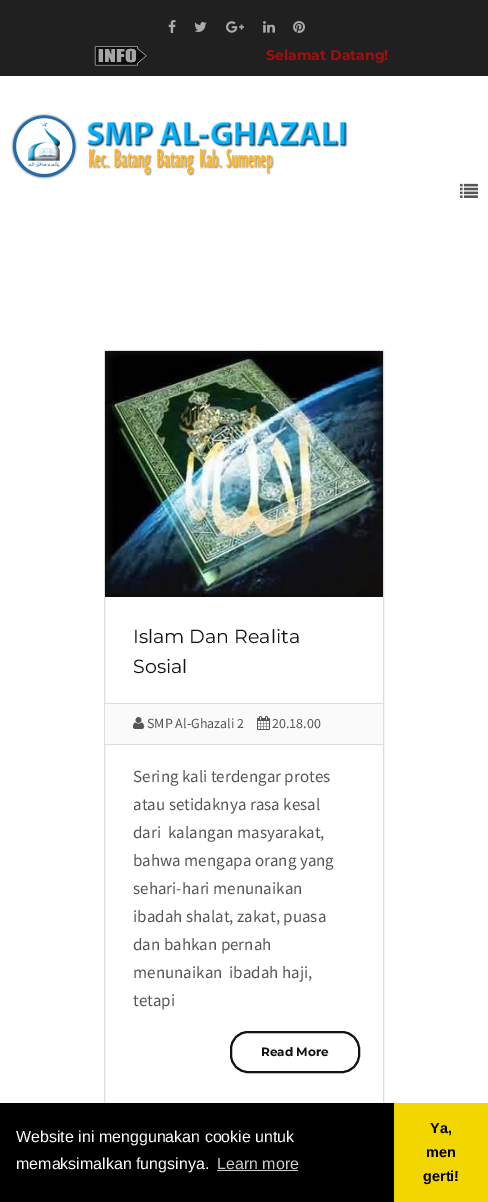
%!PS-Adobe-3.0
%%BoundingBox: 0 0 488 1202
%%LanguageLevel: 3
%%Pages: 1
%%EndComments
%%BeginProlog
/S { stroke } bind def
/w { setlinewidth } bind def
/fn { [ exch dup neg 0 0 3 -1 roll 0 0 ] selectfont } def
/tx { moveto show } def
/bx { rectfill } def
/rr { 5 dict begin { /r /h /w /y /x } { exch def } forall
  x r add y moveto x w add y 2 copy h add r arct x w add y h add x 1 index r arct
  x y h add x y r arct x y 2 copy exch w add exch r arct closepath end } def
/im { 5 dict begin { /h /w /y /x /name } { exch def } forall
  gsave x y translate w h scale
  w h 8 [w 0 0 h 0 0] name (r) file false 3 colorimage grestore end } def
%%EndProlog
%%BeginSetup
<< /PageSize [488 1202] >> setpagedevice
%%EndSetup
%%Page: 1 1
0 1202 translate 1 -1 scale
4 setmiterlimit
1 setgray
0 0 488 1202 bx
0.125 setgray
0 0 488 76 bx
(image0.raw) 168 20 8 13 im
(image1.raw) 194 22 13 10 im
(image2.raw) 226 21 18 12 im
(image3.raw) 263 21 12 12 im
(image4.raw) 293 21 12 12 im
(image5.raw) 94 46 53 20 im
/Montserrat-Bold 14 fn
0.651 0.051 0.051 setrgbcolor
(Selamat Datang!) 266 60 tx
0.067 0.235 0.494 setrgbcolor
389 61 1 1 bx
(image6.raw) 11 113 337 66 im
(image7.raw) 460 183 18 15 im
0.867 setgray
104.5 350.5 279 758 rectstroke
(image8.raw) 105 351 278 246 im
/Montserrat-Regular 19 fn
0.067 setgray
(Islam Dan Realita) 133 643 tx
(Sosial) 133 673 tx
0.98 setgray
105 704 278 40 bx
0.867 setgray
105 703 278 1 bx
105 744 278 1 bx
(image9.raw) 133 717 11 12 im
/SourceSansPro-Regular 14 fn
0.333 setgray
(SMP Al-Ghazali 2) 147 728 tx
(image10.raw) 257 716 13 14 im
(20.18.00) 272 728 tx
/SourceSansPro-Regular 17 fn
(Sering kali terdengar protes) 133 782 tx
(atau setidaknya rasa kesal) 133 810 tx
(dari  kalangan masyarakat,) 133 838 tx
(bahwa mengapa orang yang) 133 866 tx
(sehari-hari menunaikan) 133 894 tx
(ibadah shalat, zakat, puasa) 133 922 tx
(dan bahkan pernah) 133 950 tx
(menunaikan  ibadah haji,) 133 978 tx
(tetapi) 133 1006 tx
0.067 setgray
2 w
231 1032 128 40 17 rr S
/Montserrat-Bold 12 fn
(Read More) 261 1056 tx
0 setgray
0 1103 394 99 bx
/LiberationSans-Regular 16 fn
1 setgray
(Website ini menggunakan cookie untuk) 16 1142 tx
(memaksimalkan fungsinya.) 16 1169 tx
0.8 setgray
(Learn more) 217 1169 tx
217 1170 81 1 bx
0.945 0.839 0 setrgbcolor
394 1103 94 99 bx
/LiberationSans-Bold 14.5 fn
0 setgray
(Ya,) 430 1133 tx
(men) 426 1157 tx
(gerti!) 423 1181 tx
showpage
%%EOF
